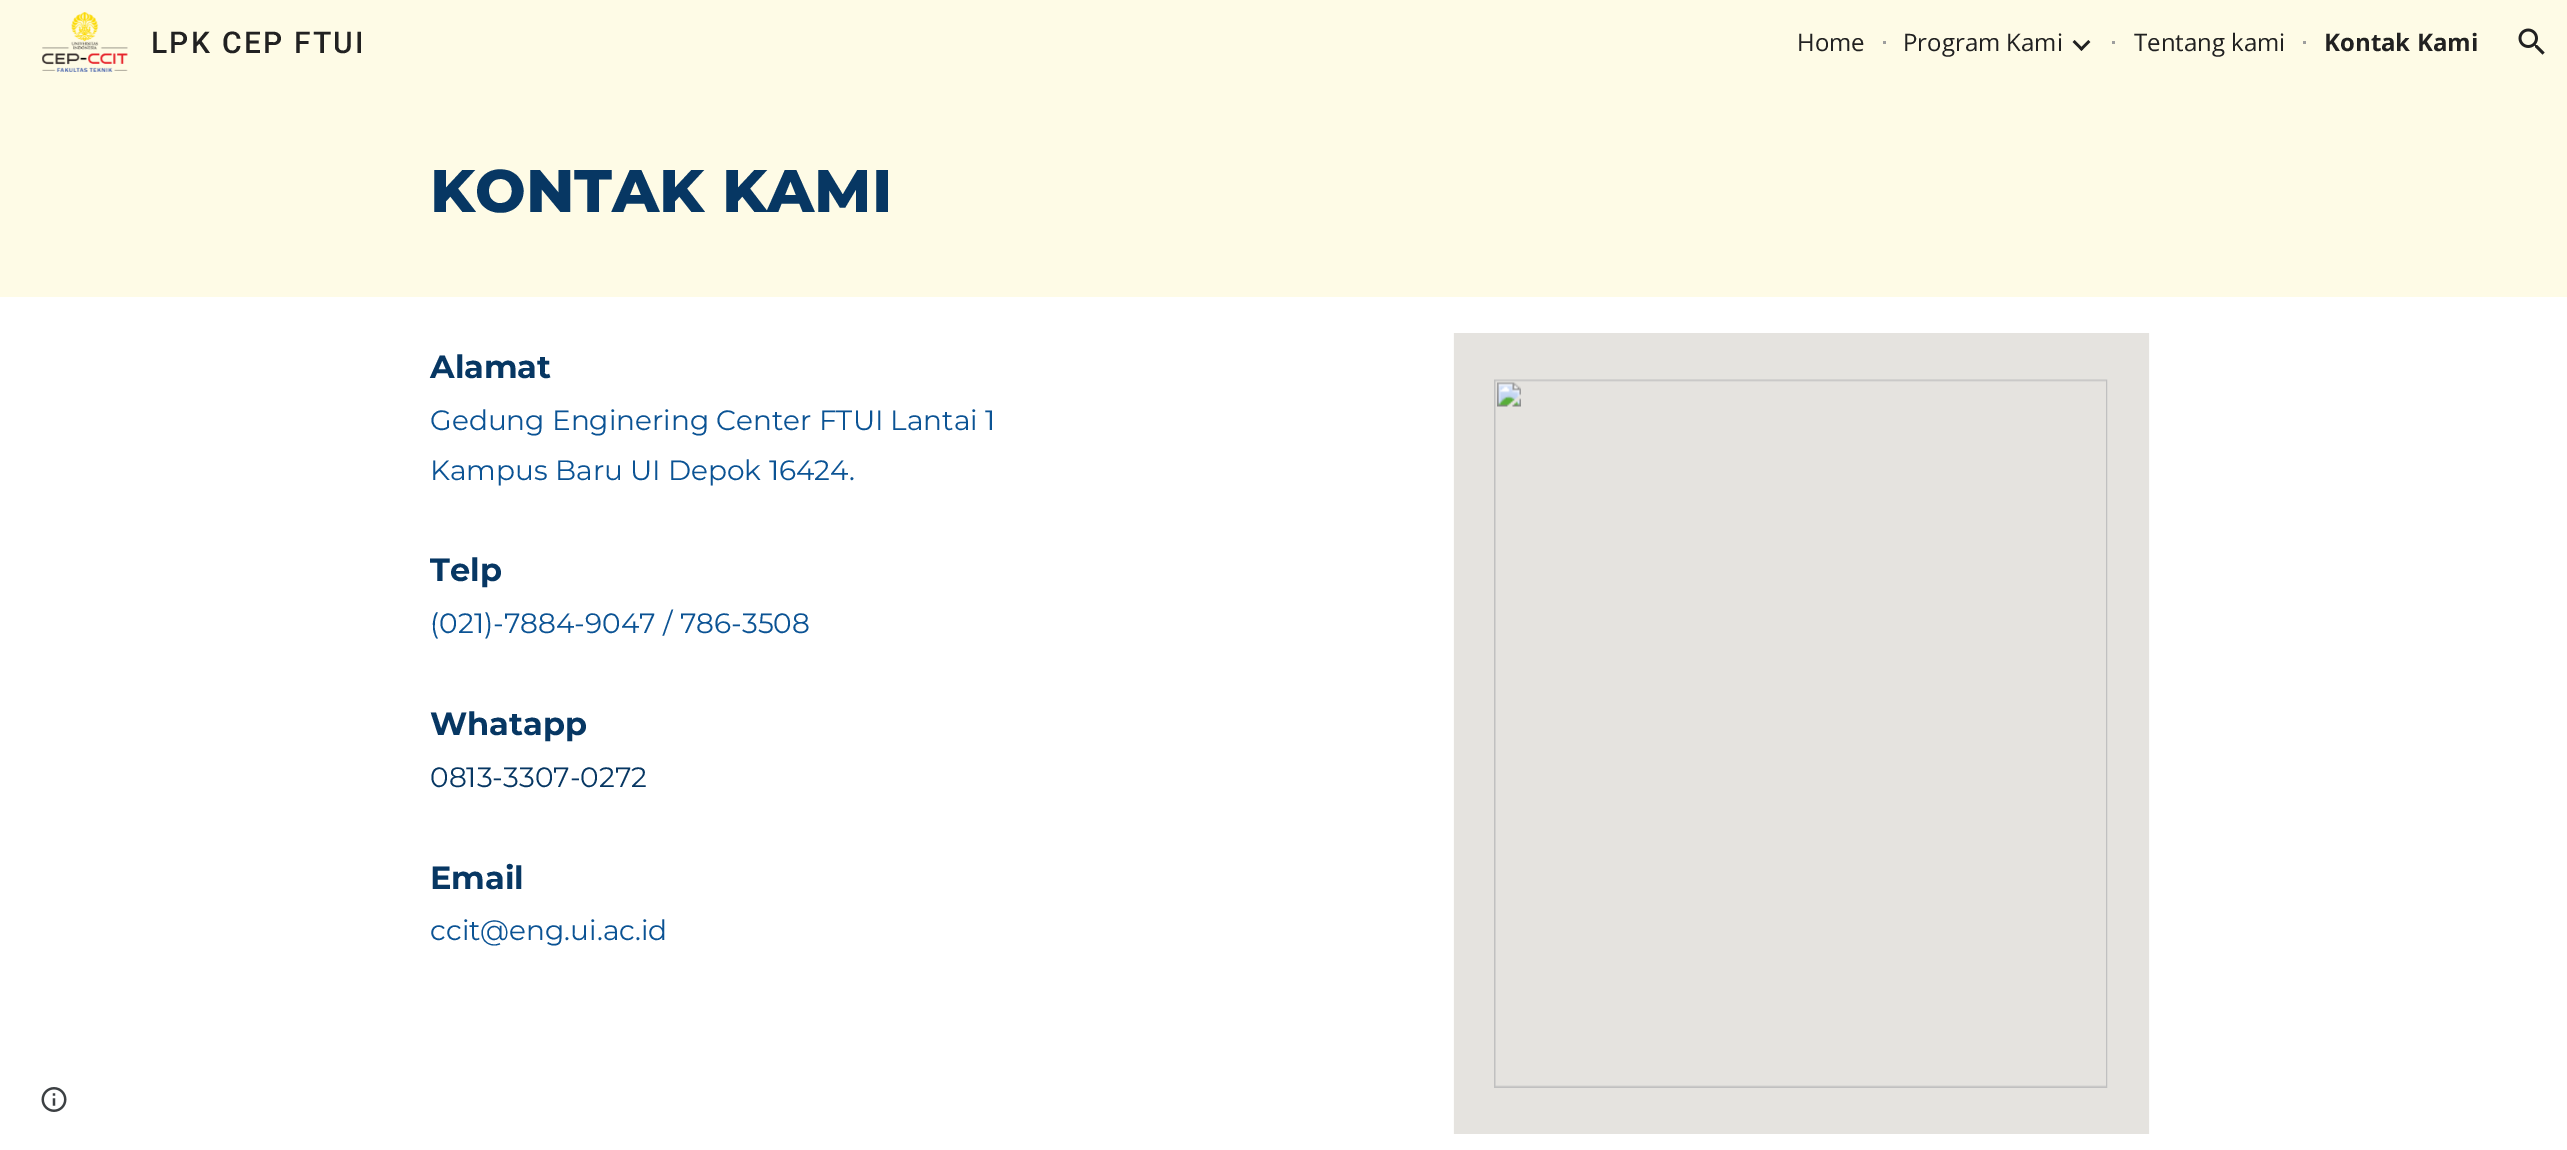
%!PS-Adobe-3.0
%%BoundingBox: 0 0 2567 1150
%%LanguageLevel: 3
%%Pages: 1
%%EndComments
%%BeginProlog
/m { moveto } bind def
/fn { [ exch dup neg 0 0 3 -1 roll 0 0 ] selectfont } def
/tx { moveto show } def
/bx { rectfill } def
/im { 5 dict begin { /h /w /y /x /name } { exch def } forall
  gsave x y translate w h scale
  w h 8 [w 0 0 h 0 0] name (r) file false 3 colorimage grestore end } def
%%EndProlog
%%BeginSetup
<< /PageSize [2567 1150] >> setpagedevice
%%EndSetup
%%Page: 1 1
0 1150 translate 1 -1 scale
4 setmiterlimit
1 setgray
0 0 2567 1150 bx
0.996 0.984 0.902 setrgbcolor
0 0 2567 297 bx
(image0.raw) 42 12 86 60 im
/Roboto-Medium 30 fn
0.129 setgray
151 53 m 2.25 0 (LPK CEP FTUI) ashow
/OpenSans-Regular 24 fn
(Home) 1797 51 tx
0.62 setgray
1883 41 3 3 bx
0.129 setgray
(Program Kami) 1903 51 tx
(image1.raw) 2072 40 19 11 im
0.62 setgray
2112 41 3 3 bx
0.129 setgray
(Tentang kami) 2134 51 tx
0.62 setgray
2303 41 3 3 bx
/OpenSans-Bold 24 fn
0.129 setgray
(Kontak Kami) 2324 51 tx
(image2.raw) 2518 28 27 27 im
/Montserrat-ExtraBold 60 fn
0.027 0.216 0.388 setrgbcolor
(KONTAK KAMI) 430 212 tx
/Montserrat-Bold 32 fn
(Alamat) 430 378 tx
/Montserrat-Regular 28 fn
0.043 0.325 0.58 setrgbcolor
(Gedung Enginering Center FTUI Lantai 1) 430 430 tx
(Kampus Baru UI Depok 16424.) 430 480 tx
/Montserrat-Bold 32 fn
0.027 0.216 0.388 setrgbcolor
(Telp) 430 581 tx
/Montserrat-Regular 28 fn
0.043 0.325 0.58 setrgbcolor
(\(021\)-7884-9047 / 786-3508) 430 633 tx
/Montserrat-Bold 32 fn
0.027 0.216 0.388 setrgbcolor
(Whatapp) 430 735 tx
/Montserrat-Regular 28 fn
(0813-3307-0272) 430 787 tx
/Montserrat-Bold 32 fn
(Email) 430 889 tx
/Montserrat-Regular 28 fn
0.043 0.325 0.58 setrgbcolor
(ccit@eng.ui.ac.id) 430 940 tx
(image3.raw) 1453 333 697 801 im
(image4.raw) 41 1087 26 25 im
showpage
%%EOF
